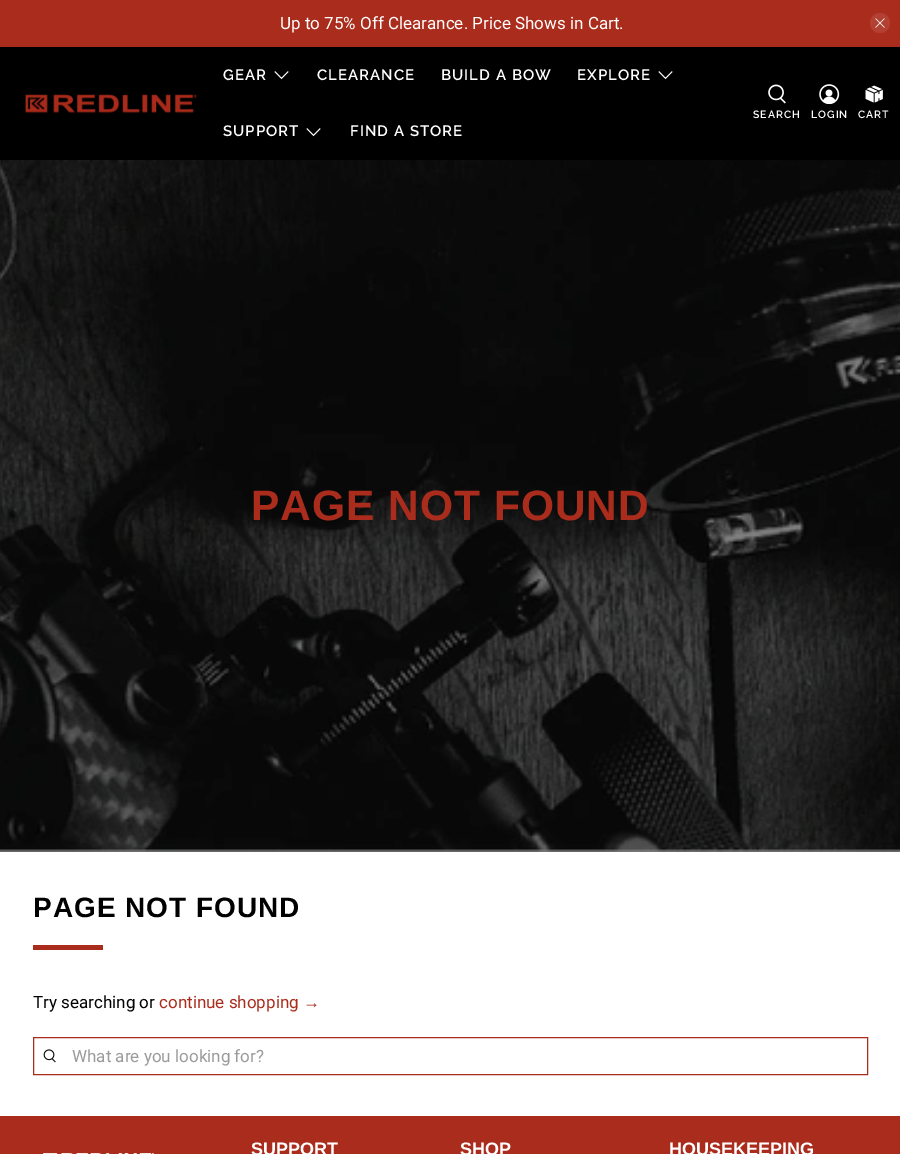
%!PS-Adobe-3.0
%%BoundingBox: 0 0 900 1154
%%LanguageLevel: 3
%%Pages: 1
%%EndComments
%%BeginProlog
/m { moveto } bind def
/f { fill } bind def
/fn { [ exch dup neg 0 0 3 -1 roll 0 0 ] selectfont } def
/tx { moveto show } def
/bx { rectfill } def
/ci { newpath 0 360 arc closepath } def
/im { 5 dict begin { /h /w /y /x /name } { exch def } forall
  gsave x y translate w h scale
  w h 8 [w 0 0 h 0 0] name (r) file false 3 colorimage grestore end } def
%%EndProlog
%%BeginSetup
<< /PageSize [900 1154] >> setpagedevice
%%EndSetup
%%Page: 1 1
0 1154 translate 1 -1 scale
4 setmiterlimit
1 setgray
0 0 900 1154 bx
0.502 setgray
0 844 900 8 bx
0.667 0.173 0.11 setrgbcolor
0 0 900 47 bx
/Roboto-Regular 17 fn
1 setgray
(Up to 75% Off Clearance. Price Shows in Cart.) 280 29 tx
0.702 0.255 0.2 setrgbcolor
880 23 10 ci f
(image0.raw) 875 18 10 10 im
0 setgray
0 47 900 113 bx
(image1.raw) 25 94 172 20 im
/Raleway-SemiBold 15 fn
1 setgray
223 80 m 1 0 (GEAR) ashow
(image2.raw) 274 71 15 9 im
317 80 m 1 0 (CLEARANCE) ashow
441 80 m 1 0 (BUILD A BOW) ashow
577 80 m 1 0 (EXPLORE) ashow
(image2.raw) 658 71 15 9 im
223 136 m 1 0 (SUPPORT) ashow
(image2.raw) 306 128 15 9 im
350 136 m 1 0 (FIND A STORE) ashow
(image3.raw) 768 84 18 20 im
/Raleway-SemiBold 10.5 fn
753 118 m 1 0 (SEARCH) ashow
(image4.raw) 819 84 21 20 im
811 118 m 1 0 (LOGIN) ashow
(image5.raw) 865 85 18 18 im
858 118 m 1 0 (CART) ashow
(image6.raw) 0 160 900 692 im
/Arimo-Bold 42.5 fn
0.667 0.173 0.11 setrgbcolor
251 520 m 1 0 (PAGE NOT FOUND) ashow
/Arimo-Bold 28 fn
0 setgray
33 917 m 1 0 (PAGE NOT FOUND) ashow
0.667 0.173 0.11 setrgbcolor
33 945 70 5 bx
/Roboto-Regular 17 fn
0 setgray
(Try searching or) 33 1008 tx
0.667 0.173 0.11 setrgbcolor
(continue shopping) 159 1008 tx
/LiberationSans-Regular 17 fn
(→) 303 1008 tx
33.5 1037.5 834 37 rectstroke
(image7.raw) 43 1049 13 14 im
/Roboto-Regular 17 fn
0.608 setgray
(What are you looking for?) 72 1062 tx
0.667 0.173 0.11 setrgbcolor
0 1116 900 38 bx
(image8.raw) 43 1153 111 1 im
/Arimo-Bold 18 fn
1 setgray
(SUPPORT) 251 1155 tx
(SHOP) 460 1155 tx
(HOUSEKEEPING) 669 1155 tx
showpage
%%EOF
